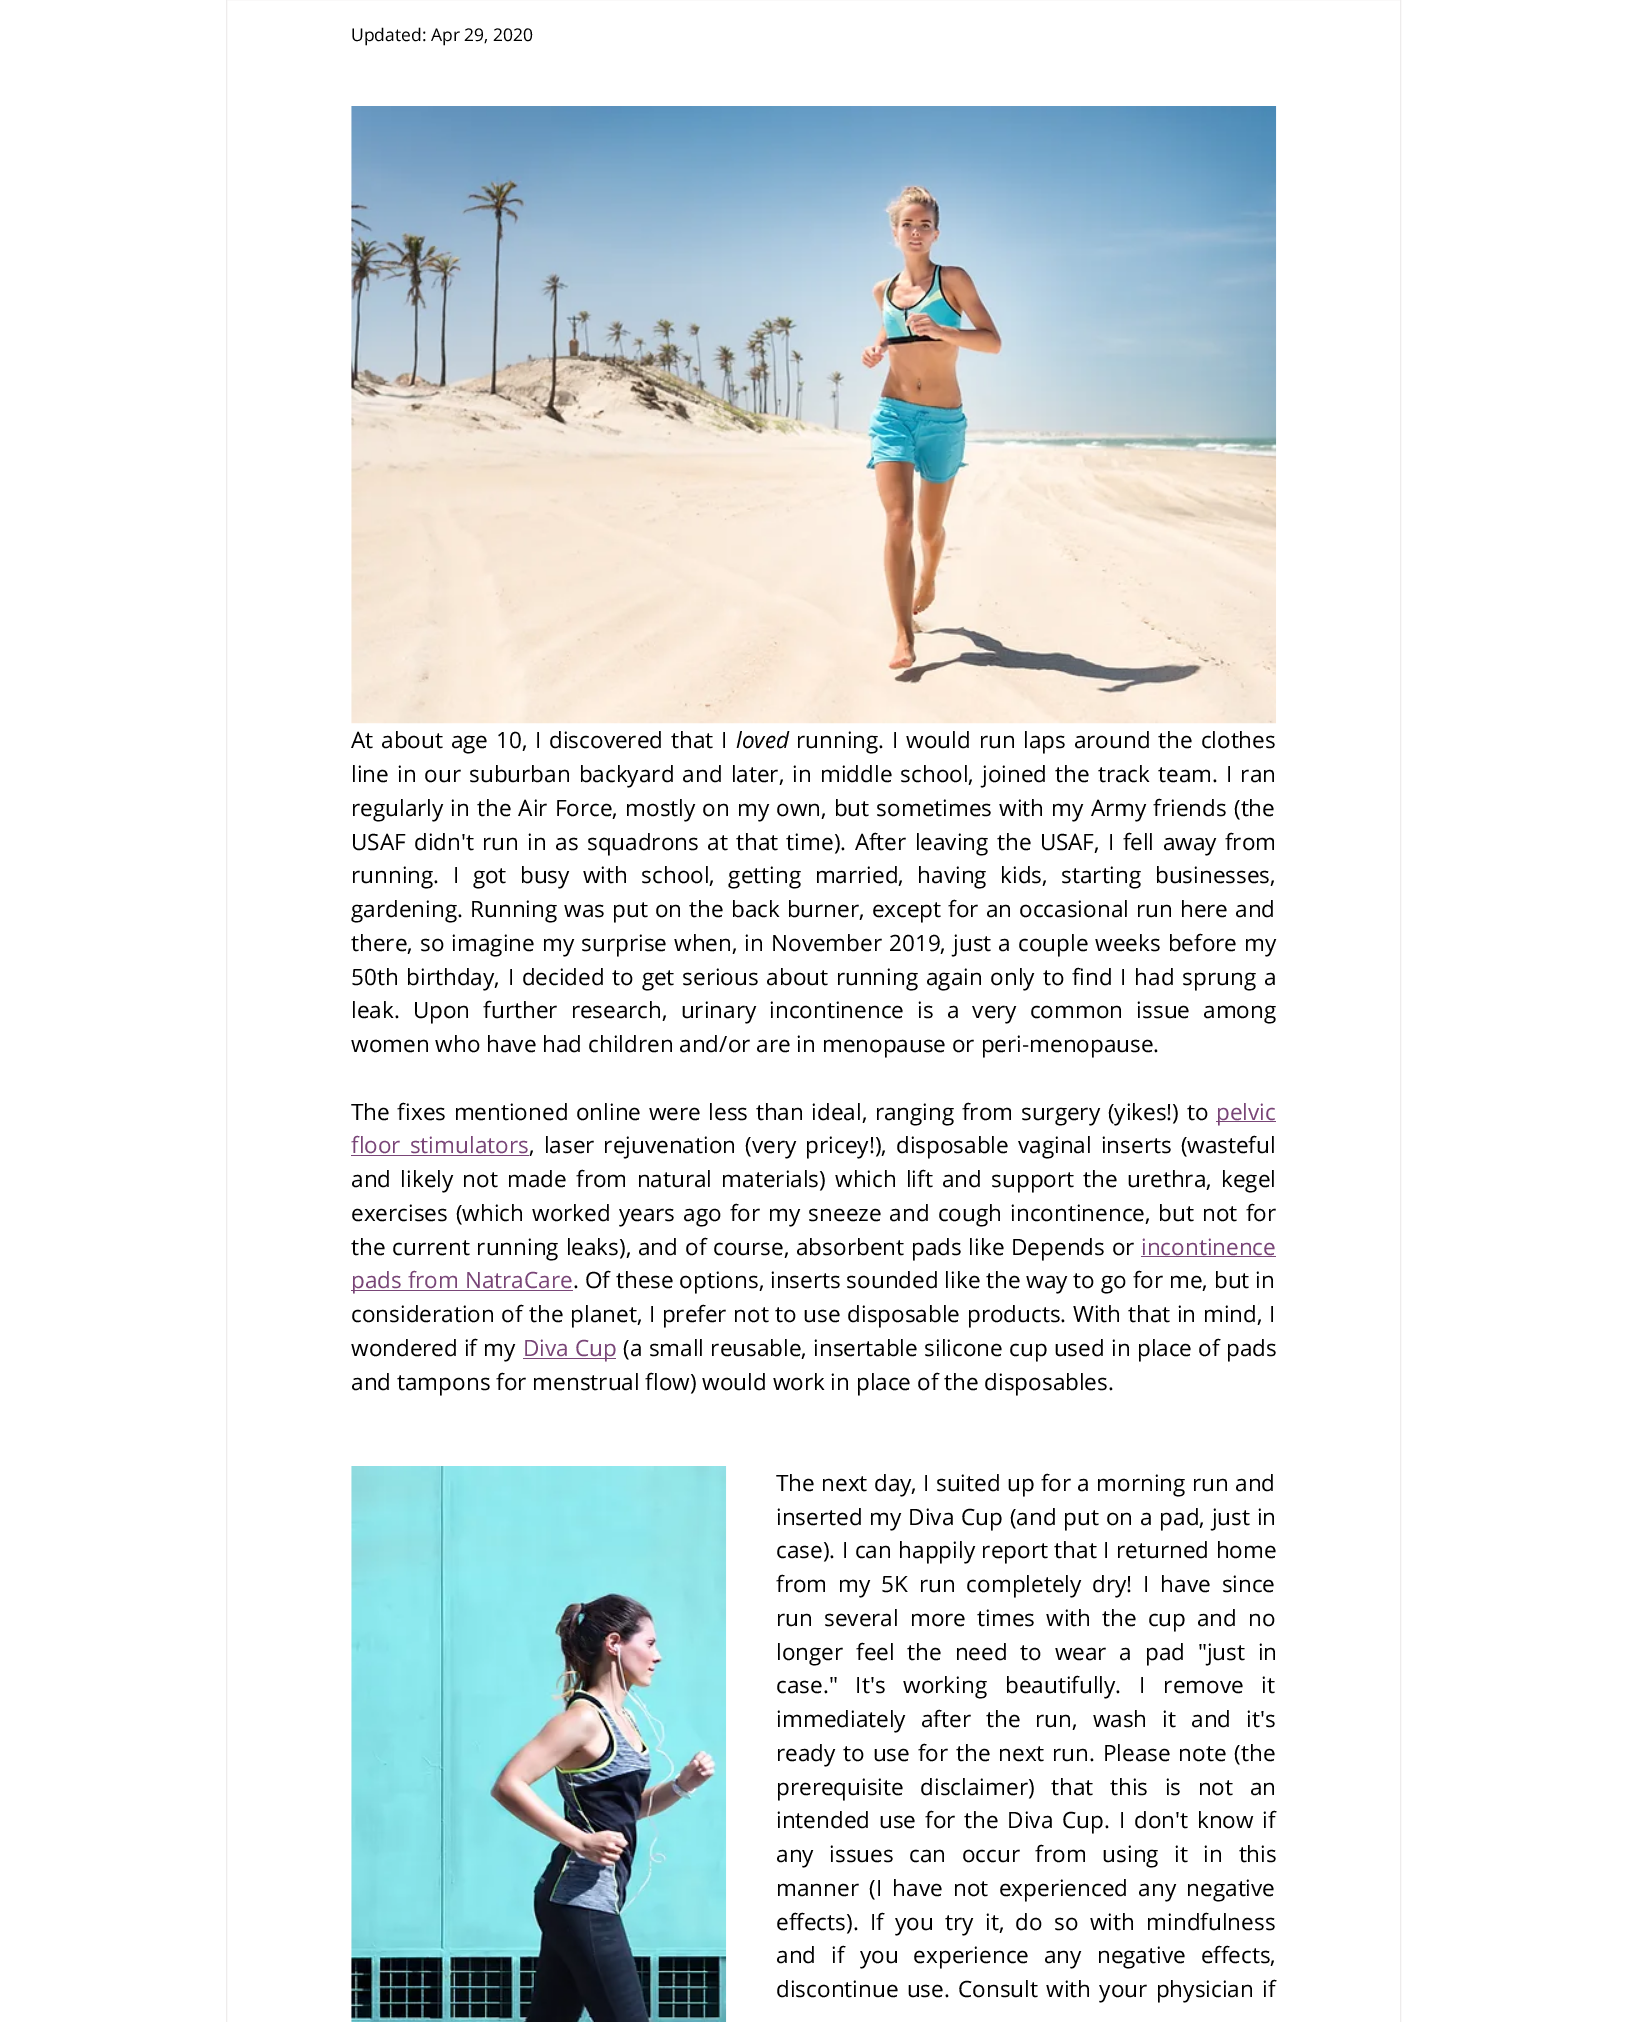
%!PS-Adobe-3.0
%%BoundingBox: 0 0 1627 2022
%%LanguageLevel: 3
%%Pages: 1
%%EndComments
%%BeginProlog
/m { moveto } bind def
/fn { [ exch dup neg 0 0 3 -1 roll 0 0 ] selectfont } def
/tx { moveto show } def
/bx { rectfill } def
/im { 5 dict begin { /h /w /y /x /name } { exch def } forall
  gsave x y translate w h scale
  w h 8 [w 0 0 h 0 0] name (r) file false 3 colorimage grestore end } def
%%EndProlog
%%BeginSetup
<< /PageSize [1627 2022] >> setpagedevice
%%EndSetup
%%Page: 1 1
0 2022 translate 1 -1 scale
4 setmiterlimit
1 setgray
0 0 1627 2022 bx
0.933 0.925 0.925 setrgbcolor
226.5 -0.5 1174 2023 rectstroke
/OpenSans-Regular 17.5 fn
0 setgray
(Updated: Apr 29, 2020) 351 41 tx
(image0.raw) 351 106 926 618 im
/OpenSans-Regular 22.5 fn
351 748 m 2 0 32 (At about age 10, I discovered that I) widthshow
/OpenSans-Italic 22.5 fn
(loved) 736 748 tx
/OpenSans-Regular 22.5 fn
796 748 m 2 0 32 (running. I would run laps around the clothes) widthshow
351 782 m 2.25 0 32 (line in our suburban backyard and later, in middle school, joined the track team. I ran) widthshow
351 816 m 1.25 0 32 (regularly in the Air Force, mostly on my own, but sometimes with my Army friends \(the) widthshow
351 850 m 2.5 0 32 (USAF didn't run in as squadrons at that time\). After leaving the USAF, I fell away from) widthshow
351 883 m 7.6 0 32 (running. I got busy with school, getting married, having kids, starting businesses,) widthshow
351 917 m 1.25 0 32 (gardening. Running was put on the back burner, except for an occasional run here and) widthshow
351 951 m 1.25 0 32 (there, so imagine my surprise when, in November 2019, just a couple weeks before my) widthshow
351 985 m 1.9 0 32 (50th birthday, I decided to get serious about running again only to find I had sprung a) widthshow
351 1018 m 7.25 0 32 (leak. Upon further research, urinary incontinence is a very common issue among) widthshow
(women who have had children and/or are in menopause or peri-menopause.) 351 1052 tx
351 1120 m 1.75 0 32 (The fixes mentioned online were less than ideal, ranging from surgery \(yikes!\) to) widthshow
0.475 0.271 0.467 setrgbcolor
1216 1121 60 1 bx
(pelvic) 1216 1120 tx
351 1153 m 3.25 0 32 (floor stimulators) widthshow
351 1155 178 1 bx
0 setgray
529 1153 m 3.25 0 32 (, laser rejuvenation \(very pricey!\), disposable vaginal inserts \(wasteful) widthshow
351 1187 m 3.4 0 32 (and likely not made from natural materials\) which lift and support the urethra, kegel) widthshow
351 1221 m 2.25 0 32 (exercises \(which worked years ago for my sneeze and cough incontinence, but not for) widthshow
351 1255 m 1 0 32 (the current running leaks\), and of course, absorbent pads like Depends or) widthshow
0.475 0.271 0.467 setrgbcolor
(incontinence) 1141 1255 tx
1141 1256 135 1 bx
351 1290 222 1 bx
(pads from NatraCare) 351 1288 tx
0 setgray
(. Of these options, inserts sounded like the way to go for me, but in) 573 1288 tx
351 1322 m 0.8 0 32 (consideration of the planet, I prefer not to use disposable products. With that in mind, I) widthshow
(wondered if my) 351 1356 tx
0.475 0.271 0.467 setrgbcolor
523 1358 93 1 bx
(Diva Cup) 523 1356 tx
0 setgray
623 1356 m 0.5 0 32 (\(a small reusable, insertable silicone cup used in place of pads) widthshow
(and tampons for menstrual flow\) would work in place of the disposables.) 351 1390 tx
(image1.raw) 351 1466 376 556 im
776 1491 m 0.5 0 32 (The next day, I suited up for a morning run and) widthshow
776 1525 m 1 0 32 (inserted my Diva Cup \(and put on a pad, just in) widthshow
776 1558 m 0.75 0 32 (case\). I can happily report that I returned home) widthshow
776 1592 m 5 0 32 (from my 5K run completely dry! I have since) widthshow
776 1626 m 5.25 0 32 (run several more times with the cup and no) widthshow
776 1660 m 7 0 32 (longer feel the need to wear a pad "just in) widthshow
776 1693 m 12 0 32 (case." It's working beautifully. I remove it) widthshow
776 1727 m 9.25 0 32 (immediately after the run, wash it and it's) widthshow
776 1761 m 2 0 32 (ready to use for the next run. Please note \(the) widthshow
776 1795 m 10.75 0 32 (prerequisite disclaimer\) that this is not an) widthshow
776 1828 m 3 0 32 (intended use for the Diva Cup. I don't know if) widthshow
776 1862 m 9.75 0 32 (any issues can occur from using it in this) widthshow
776 1896 m 4.5 0 32 (manner \(I have not experienced any negative) widthshow
776 1930 m 5.5 0 32 (effects\). If you try it, do so with mindfulness) widthshow
776 1963 m 9.25 0 32 (and if you experience any negative effects,) widthshow
776 1997 m 2.5 0 32 (discontinue use. Consult with your physician if) widthshow
showpage
%%EOF
